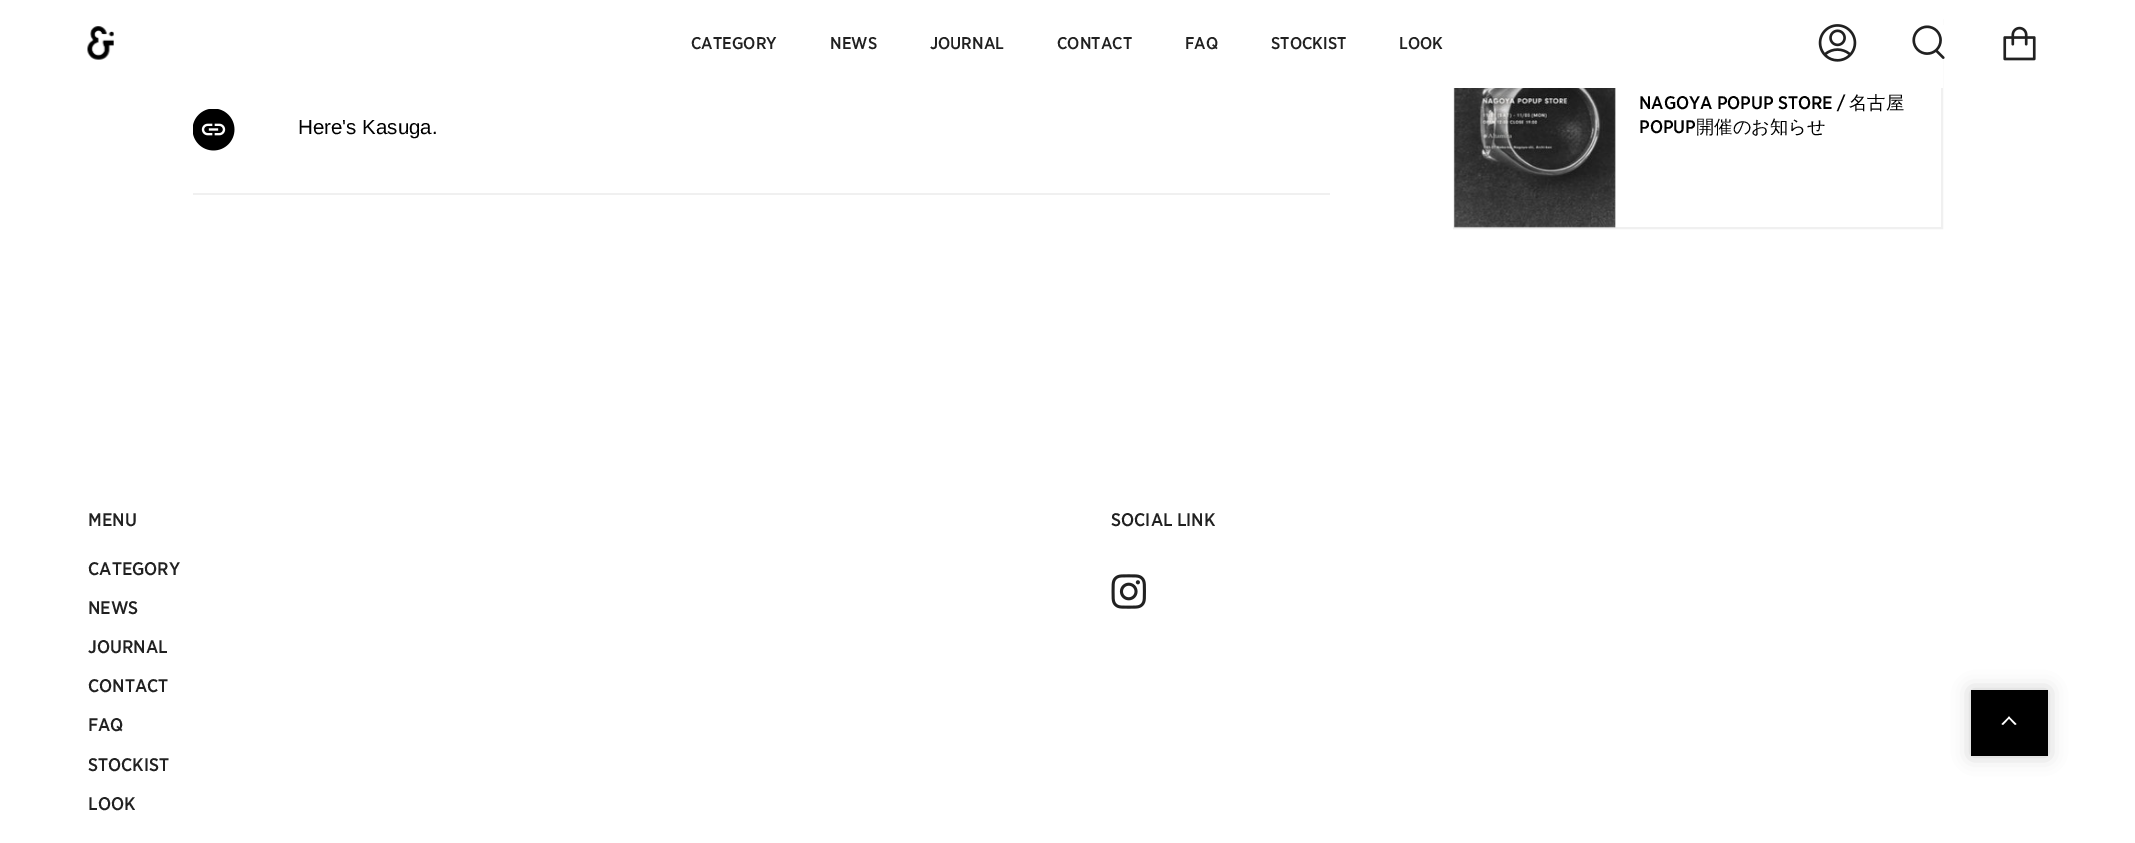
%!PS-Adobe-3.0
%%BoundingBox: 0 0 2135 843
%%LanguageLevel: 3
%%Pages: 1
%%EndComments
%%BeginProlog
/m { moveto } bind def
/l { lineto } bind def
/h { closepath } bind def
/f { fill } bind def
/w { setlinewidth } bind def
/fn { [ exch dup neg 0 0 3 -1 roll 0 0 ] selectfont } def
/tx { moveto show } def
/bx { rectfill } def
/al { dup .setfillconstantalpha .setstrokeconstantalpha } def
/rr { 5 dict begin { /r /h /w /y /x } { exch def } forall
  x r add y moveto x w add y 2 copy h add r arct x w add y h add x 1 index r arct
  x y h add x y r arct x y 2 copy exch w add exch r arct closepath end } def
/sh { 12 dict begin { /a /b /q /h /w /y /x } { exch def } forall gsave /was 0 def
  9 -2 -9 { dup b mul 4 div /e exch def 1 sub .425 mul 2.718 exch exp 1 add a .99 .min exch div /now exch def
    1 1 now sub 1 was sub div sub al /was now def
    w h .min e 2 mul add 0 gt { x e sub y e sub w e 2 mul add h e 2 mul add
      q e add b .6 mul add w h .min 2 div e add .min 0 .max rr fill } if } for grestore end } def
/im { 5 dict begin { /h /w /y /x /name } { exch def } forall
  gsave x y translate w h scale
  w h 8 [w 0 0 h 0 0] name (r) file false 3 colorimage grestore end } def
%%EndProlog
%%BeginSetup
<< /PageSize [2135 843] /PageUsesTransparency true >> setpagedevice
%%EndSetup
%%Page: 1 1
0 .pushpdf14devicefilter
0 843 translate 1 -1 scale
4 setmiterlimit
1 setgray
0 0 2135 843 bx
0.941 setgray
2 w
1454 20 488 208 rectstroke
1 setgray
1453 19 490 69 bx
(image0.raw) 87 26 27 34 im
/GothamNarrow-Medium 17 fn
0.129 setgray
(CATEGORY) 691 49 tx
(NEWS) 830 49 tx
(JOURNAL) 930 49 tx
(CONTACT) 1057 49 tx
(FAQ) 1185 49 tx
(STOCKIST) 1271 49 tx
(LOOK) 1399 49 tx
(image1.raw) 1818 24 39 38 im
(image2.raw) 1912 25 33 34 im
(image3.raw) 2003 26 33 35 im
(image4.raw) 193 109 42 42 im
/LiberationSans-Regular 20.5 fn
0 setgray
(Here's Kasuga.) 298 134 tx
0.941 setgray
193 193 1137 2 bx
(image5.raw) 1454 88 162 140 im
/GothamNarrow-Medium 18.25 fn
0 setgray
(NAGOYA POPUP STORE /) 1639 109 tx
/WenQuanYiZenHei-Medium 18.25 fn
(名古屋) 1849 109 tx
/GothamNarrow-Medium 18.25 fn
(POPUP) 1639 133 tx
/WenQuanYiZenHei-Medium 18.25 fn
(開催のお知らせ) 1696 133 tx
/GothamNarrow-Medium 18.25 fn
0.129 setgray
(MENU) 88 526 tx
(CATEGORY) 88 575 tx
(NEWS) 88 614 tx
(JOURNAL) 88 653 tx
(CONTACT) 88 692 tx
(FAQ) 88 731 tx
(STOCKIST) 88 771 tx
(LOOK) 88 810 tx
(SOCIAL LINK) 1111 526 tx
(image6.raw) 1111 574 35 35 im
0 setgray
1971 690 77 66 0 9 0.2 sh
1971 690 77 66 bx
1 setgray
2010 717.5 m 2003 725 l 2001.5 724 l 2009 716.5 l h f
2016.5 724 m 2015 725 l 2008 717.5 l 2009 716.5 l h f
.poppdf14devicefilter showpage
%%EOF
